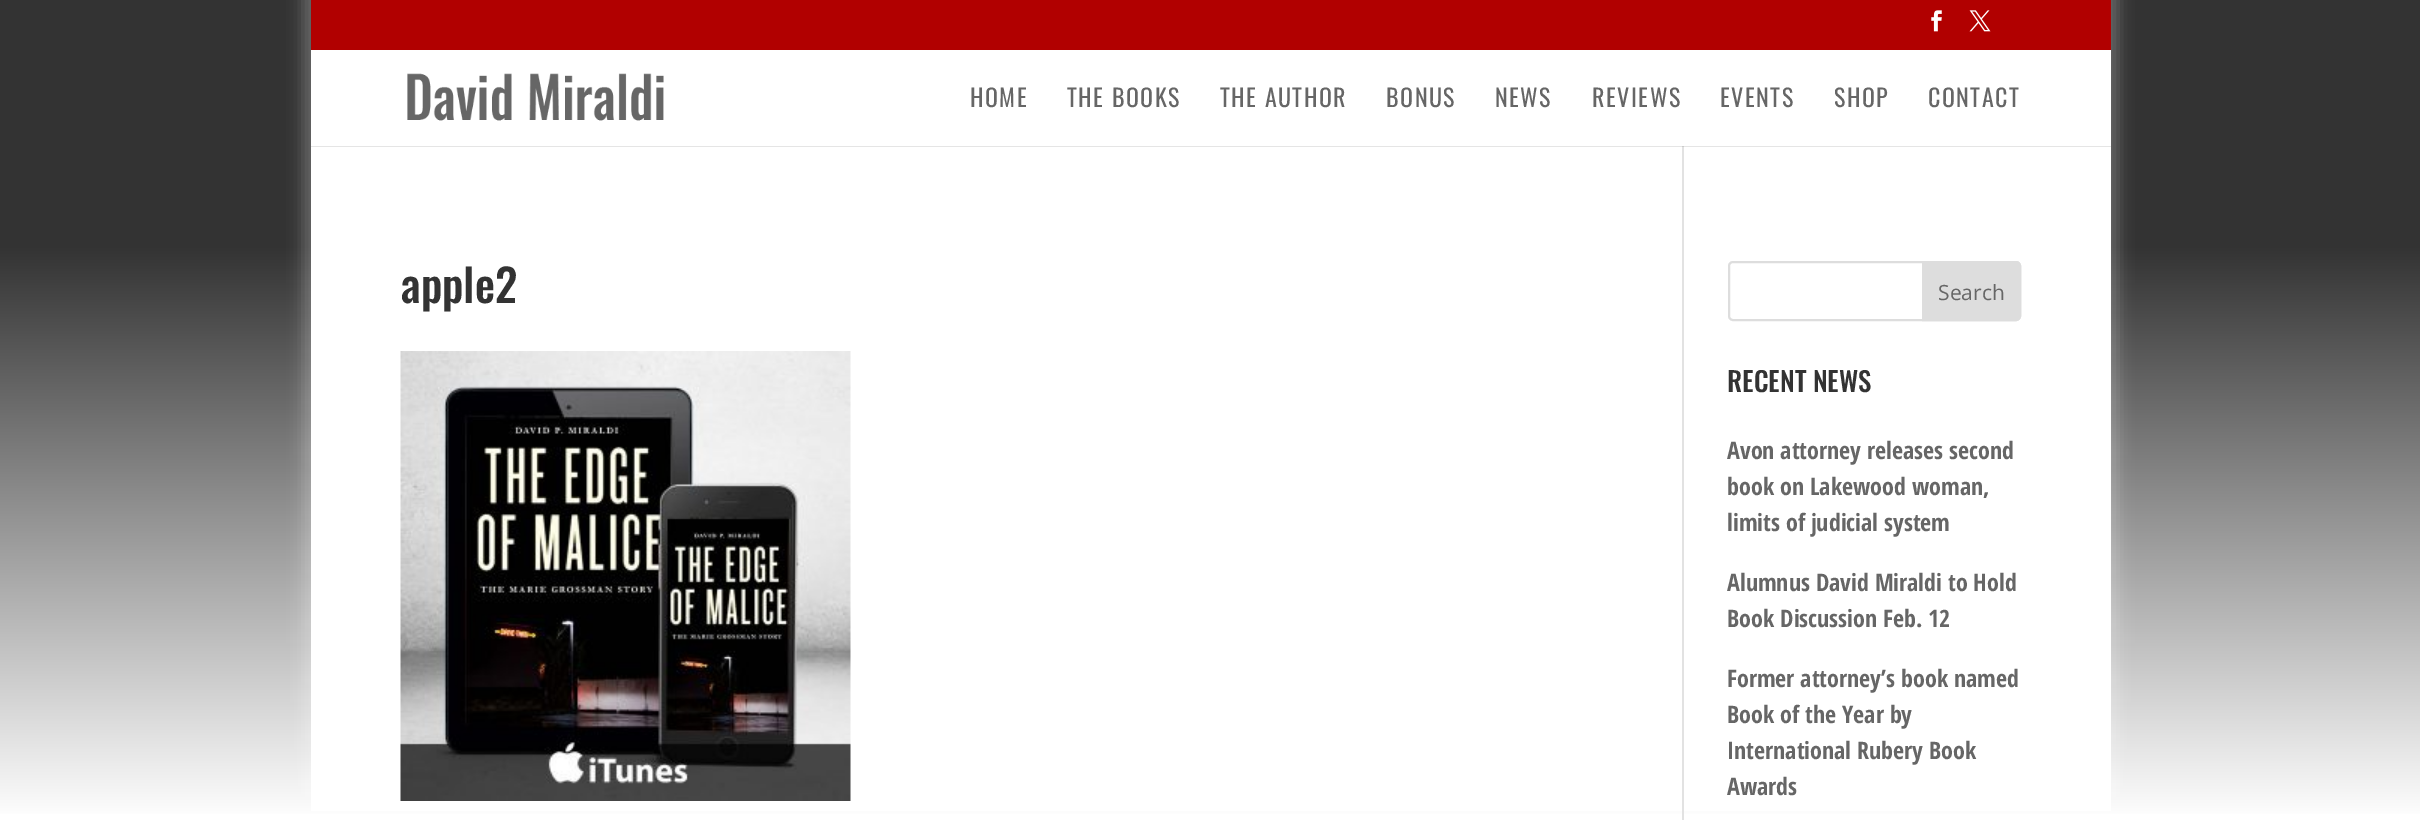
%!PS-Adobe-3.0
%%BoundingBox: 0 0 2420 820
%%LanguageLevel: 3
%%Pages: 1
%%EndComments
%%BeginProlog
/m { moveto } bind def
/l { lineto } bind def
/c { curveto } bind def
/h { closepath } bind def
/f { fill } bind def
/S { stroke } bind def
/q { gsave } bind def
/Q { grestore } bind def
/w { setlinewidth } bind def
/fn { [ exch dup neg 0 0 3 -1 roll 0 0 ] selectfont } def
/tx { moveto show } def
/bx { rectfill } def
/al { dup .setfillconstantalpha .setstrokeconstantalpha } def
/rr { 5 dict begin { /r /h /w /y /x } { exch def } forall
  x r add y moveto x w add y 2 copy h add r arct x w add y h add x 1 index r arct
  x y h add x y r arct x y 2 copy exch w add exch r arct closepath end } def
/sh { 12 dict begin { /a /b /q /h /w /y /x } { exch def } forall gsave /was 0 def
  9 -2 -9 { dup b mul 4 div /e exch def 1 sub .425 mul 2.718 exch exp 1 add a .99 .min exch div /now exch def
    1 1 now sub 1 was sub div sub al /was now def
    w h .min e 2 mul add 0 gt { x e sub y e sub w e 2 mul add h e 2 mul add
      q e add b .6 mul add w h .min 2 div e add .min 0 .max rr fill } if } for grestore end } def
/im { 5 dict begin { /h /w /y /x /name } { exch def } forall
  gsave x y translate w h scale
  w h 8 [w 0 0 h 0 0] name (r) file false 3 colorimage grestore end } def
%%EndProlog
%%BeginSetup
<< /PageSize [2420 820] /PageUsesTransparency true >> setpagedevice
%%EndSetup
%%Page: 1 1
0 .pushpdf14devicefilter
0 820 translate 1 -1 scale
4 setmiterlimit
1 setgray
0 0 2420 820 bx
q 0 0 m 2420 0 l 2420 814 l 0 814 l h clip newpath
<< /ShadingType 2 /ColorSpace /DeviceRGB /Coords [1211 0 1211 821] /Extend [true true] /Function << /FunctionType 3 /Domain [0 1] /Functions [<< /FunctionType 2 /Domain [0 1] /C0 [0.2 0.2 0.2] /C1 [0.2 0.2 0.2] /N 1 >> << /FunctionType 2 /Domain [0 1] /C0 [0.2 0.2 0.2] /C1 [1 1 1] /N 1 >>] /Bounds [0.3] /Encode [0 1 0 1] >> >> shfill Q
303 -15 1815 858 0 7.5 0.25 sh
0.694 0 0 setrgbcolor
311 0 1800 50 bx
(image0.raw) 1931 10 11 22 im
(image1.raw) 1969 10 22 22 im
1 setgray
311 146 1800 665 bx
0.886 setgray
1682 146 2 674 bx
0.1 al
0 setgray
311 146 m 311 147 l 2111 147 l 2111 51 l 2110 51 l 2110 146 l h f
1 al
1 setgray
311 50 1800 96 bx
(image2.raw) 407 73 257 48 im
/Oswald-Regular 24 fn
0.4 setgray
970 107 m 1.5 0 (HOME) ashow
1067 107 m 1.5 0 (THE BOOKS) ashow
1220 107 m 1.5 0 (THE AUTHOR) ashow
1386 107 m 1.5 0 (BONUS) ashow
1495 107 m 1.5 0 (NEWS) ashow
1592 107 m 1.5 0 (REVIEWS) ashow
1720 107 m 1.5 0 (EVENTS) ashow
1834 107 m 1.5 0 (SHOP) ashow
1928 107 m 1.5 0 (CONTACT) ashow
/Oswald-Medium 45 fn
0.2 setgray
(apple2) 401 303 tx
(image3.raw) 400 351 451 450 im
0.867 setgray
2 w
1729 262 291 58 4 rr S
1923 262 m 2016 262 l 2018 262 2020 264 2020 266 c 2020 316 l 2020 318 2018 320 2016 320 c 1923 320 l h q f Q
S
/OpenSans-Regular 21 fn
0.4 setgray
(Search) 1938 300 tx
/Oswald-Medium 27 fn
0.2 setgray
(RECENT NEWS) 1727 392 tx
/OpenSansCondensed-Bold 24 fn
0.4 setgray
(Avon attorney releases second) 1727 459 tx
(book on Lakewood woman,) 1727 495 tx
(limits of judicial system) 1727 531 tx
(Alumnus David Miraldi to Hold) 1727 591 tx
(Book Discussion Feb. 12) 1727 627 tx
(Former attorney’s book named) 1727 687 tx
(Book of the Year by) 1727 723 tx
(International Rubery Book) 1727 759 tx
(Awards) 1727 795 tx
.poppdf14devicefilter showpage
%%EOF
